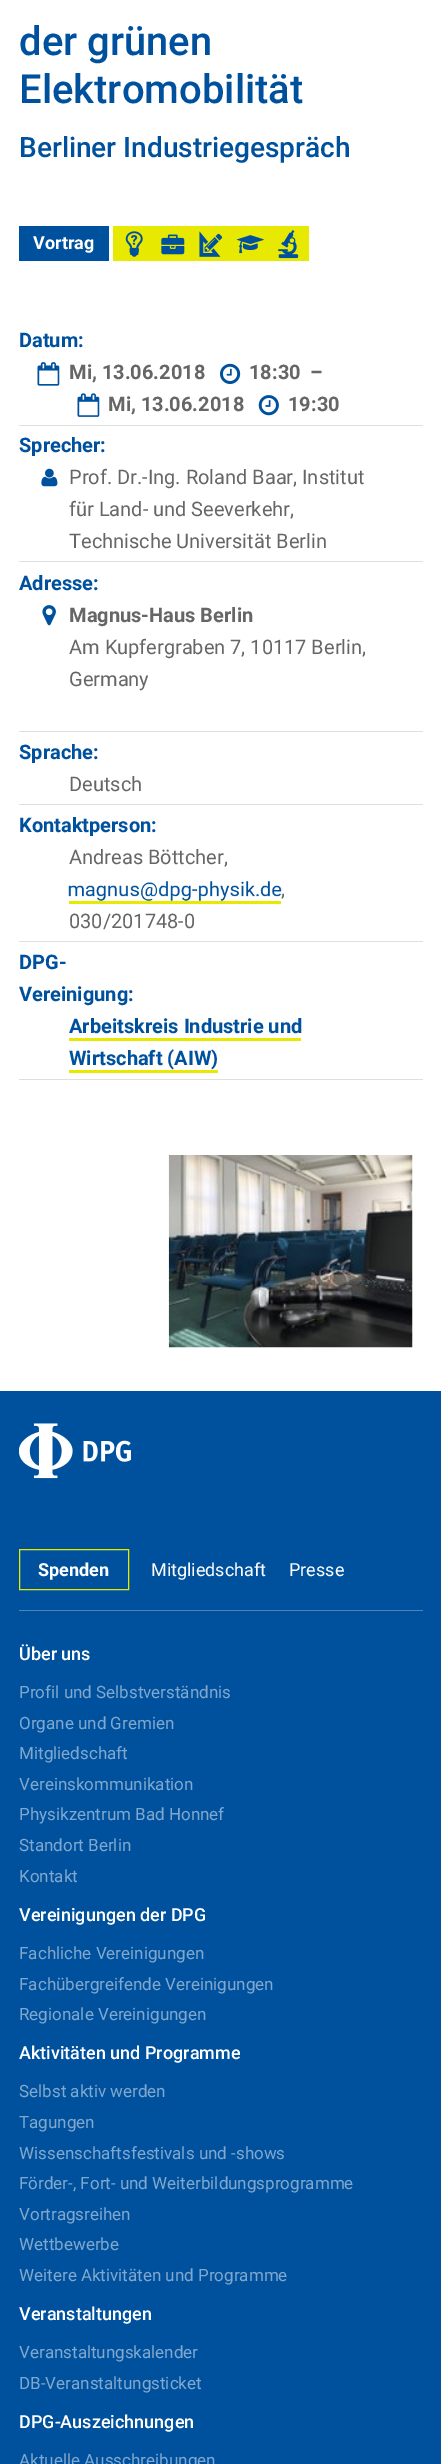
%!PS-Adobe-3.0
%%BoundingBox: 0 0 441 2464
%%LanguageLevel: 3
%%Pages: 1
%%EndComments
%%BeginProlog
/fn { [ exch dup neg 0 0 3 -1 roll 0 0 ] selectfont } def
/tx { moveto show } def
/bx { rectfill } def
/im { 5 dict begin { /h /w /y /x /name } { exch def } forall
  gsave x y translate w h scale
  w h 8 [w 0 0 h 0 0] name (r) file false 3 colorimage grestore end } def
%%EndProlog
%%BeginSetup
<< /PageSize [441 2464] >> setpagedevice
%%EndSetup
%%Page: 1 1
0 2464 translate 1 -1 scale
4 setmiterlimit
1 setgray
0 0 441 2464 bx
/Roboto-Medium 40 fn
0 0.318 0.616 setrgbcolor
(der grünen) 19 55 tx
(Elektromobilität) 19 103 tx
/Roboto-Medium 28 fn
(Berliner Industriegespräch) 19 157 tx
19 226 90 35 bx
/Roboto-Bold 18 fn
1 setgray
(Vortrag) 33 249 tx
0.91 0.914 0 setrgbcolor
113 226 196 35 bx
(image0.raw) 125 231 18 26 im
(image1.raw) 161 234 24 21 im
(image2.raw) 199 231 24 26 im
(image3.raw) 236 235 28 19 im
(image4.raw) 278 230 21 29 im
0.875 setgray
19 425 404 1 bx
/Roboto-Bold 20 fn
0 0.318 0.616 setrgbcolor
(Datum:) 19 347 tx
(image5.raw) 37 362 23 24 im
0.4 setgray
(Mi, 13.06.2018) 69 379 tx
(image6.raw) 220 363 21 21 im
(18:30  –) 249 379 tx
(image7.raw) 77 393 23 24 im
(Mi, 13.06.2018) 108 411 tx
(image8.raw) 258 395 21 21 im
(19:30) 288 411 tx
0.875 setgray
19 561 404 1 bx
0 0.318 0.616 setrgbcolor
(Sprecher:) 19 452 tx
(image9.raw) 41 468 17 19 im
/Roboto-Regular 20 fn
0.4 setgray
(Prof. Dr.-Ing. Roland Baar, Institut) 69 484 tx
(für Land- und Seeverkehr,) 69 516 tx
(Technische Universität Berlin) 69 548 tx
0.875 setgray
19 731 404 1 bx
/Roboto-Bold 20 fn
0 0.318 0.616 setrgbcolor
(Adresse:) 19 590 tx
(image10.raw) 42 605 14 21 im
0.4 setgray
(Magnus-Haus Berlin) 69 622 tx
/Roboto-Regular 20 fn
(Am Kupfergraben 7, 10117 Berlin,) 69 654 tx
(Germany) 69 686 tx
0.875 setgray
19 804 404 1 bx
/Roboto-Bold 20 fn
0 0.318 0.616 setrgbcolor
(Sprache:) 19 759 tx
/Roboto-Regular 20 fn
0.4 setgray
(Deutsch) 69 791 tx
0.875 setgray
19 941 404 1 bx
/Roboto-Bold 20 fn
0 0.318 0.616 setrgbcolor
(Kontaktperson:) 19 832 tx
/Roboto-Regular 20 fn
0.4 setgray
(Andreas Böttcher,) 69 864 tx
(image11.raw) 68 881 214 20 im
(,) 281 896 tx
0.91 0.914 0 setrgbcolor
69 901 212 3 bx
0.4 setgray
(030/201748-0) 69 928 tx
0.875 setgray
19 1079 404 1 bx
/Roboto-Bold 20 fn
0 0.318 0.616 setrgbcolor
(DPG-) 19 969 tx
(Vereinigung:) 19 1001 tx
(Arbeitskreis Industrie und) 69 1033 tx
0.91 0.914 0 setrgbcolor
69 1038 232 3 bx
0 0.318 0.616 setrgbcolor
(Wirtschaft \(AIW\)) 69 1065 tx
0.91 0.914 0 setrgbcolor
69 1070 149 3 bx
(image12.raw) 168 1155 245 193 im
0 0.318 0.616 setrgbcolor
0 1391 441 1073 bx
0.302 0.522 0.729 setrgbcolor
19 1610 404 1 bx
(image13.raw) 19 1423 112 56 im
0.91 0.914 0 setrgbcolor
19.5 1549.5 109 40 rectstroke
/Roboto-Bold 18 fn
1 setgray
(Spenden) 38 1576 tx
/Roboto-Regular 18 fn
(Mitgliedschaft) 151 1576 tx
(Presse) 289 1576 tx
/Roboto-Medium 18 fn
(Über uns) 19 1660 tx
/Roboto-Regular 17 fn
0.502 0.659 0.808 setrgbcolor
(Profil und Selbstverständnis) 19 1698 tx
(Organe und Gremien) 19 1729 tx
(Mitgliedschaft) 19 1759 tx
(Vereinskommunikation) 19 1790 tx
(Physikzentrum Bad Honnef) 19 1820 tx
(Standort Berlin) 19 1851 tx
(Kontakt) 19 1882 tx
/Roboto-Medium 18 fn
1 setgray
(Vereinigungen der DPG) 19 1921 tx
/Roboto-Regular 17 fn
0.502 0.659 0.808 setrgbcolor
(Fachliche Vereinigungen) 19 1959 tx
(Fachübergreifende Vereinigungen) 19 1990 tx
(Regionale Vereinigungen) 19 2020 tx
/Roboto-Medium 18 fn
1 setgray
(Aktivitäten und Programme) 19 2059 tx
/Roboto-Regular 17 fn
0.502 0.659 0.808 setrgbcolor
(Selbst aktiv werden) 19 2097 tx
(Tagungen) 19 2128 tx
(Wissenschaftsfestivals und -shows) 19 2159 tx
(Förder-, Fort- und Weiterbildungsprogramme) 19 2189 tx
(Vortragsreihen) 19 2220 tx
(Wettbewerbe) 19 2250 tx
(Weitere Aktivitäten und Programme) 19 2281 tx
/Roboto-Medium 18 fn
1 setgray
(Veranstaltungen) 19 2320 tx
/Roboto-Regular 17 fn
0.502 0.659 0.808 setrgbcolor
(Veranstaltungskalender) 19 2358 tx
(DB-Veranstaltungsticket) 19 2389 tx
/Roboto-Medium 18 fn
1 setgray
(DPG-Auszeichnungen) 19 2428 tx
/Roboto-Regular 17 fn
0.502 0.659 0.808 setrgbcolor
(Aktuelle Ausschreibungen) 19 2466 tx
showpage
%%EOF
